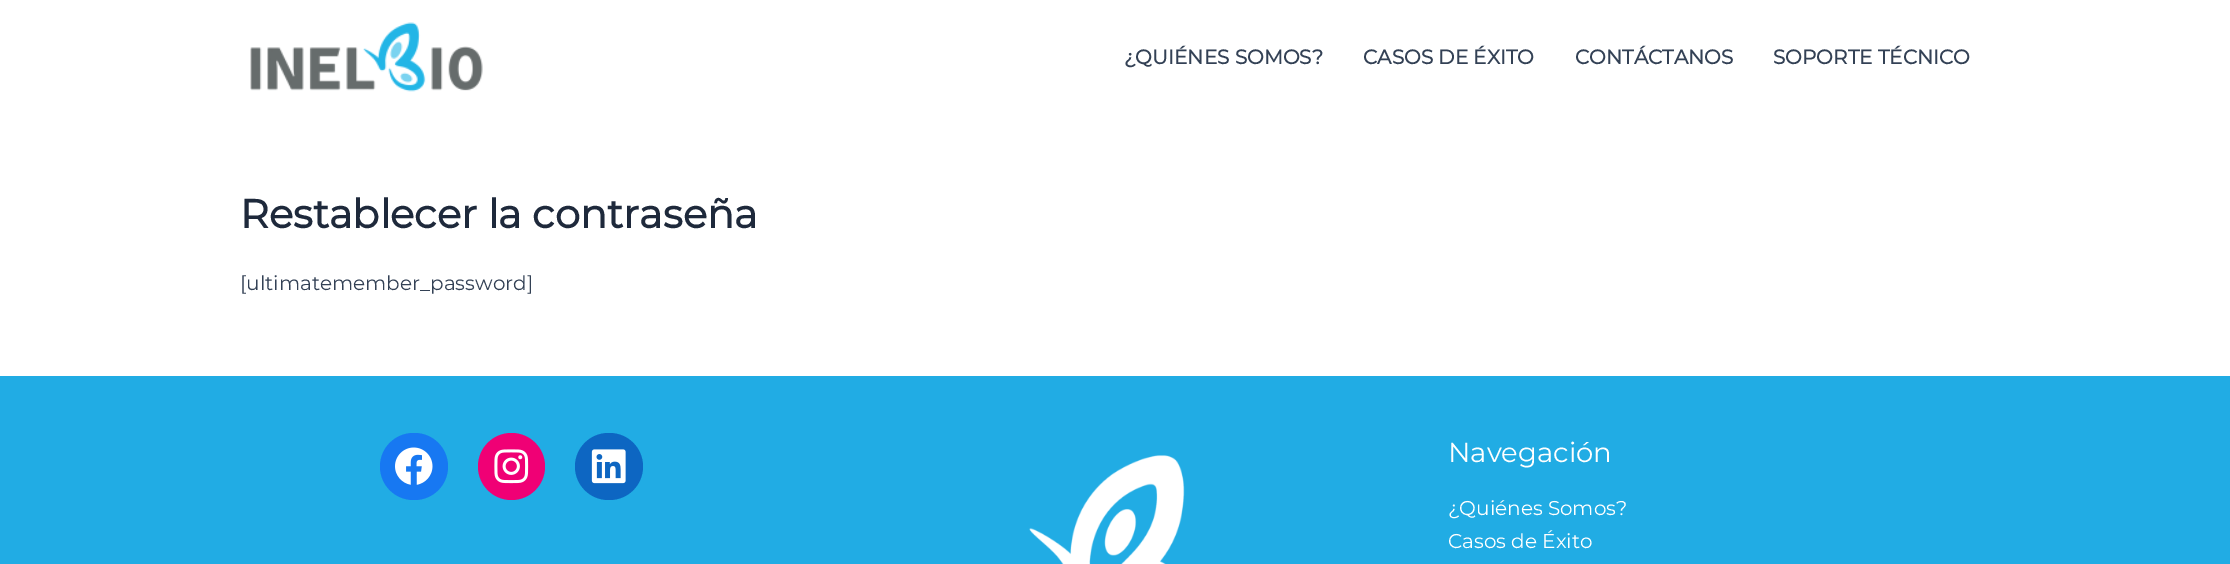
%!PS-Adobe-3.0
%%BoundingBox: 0 0 2230 564
%%LanguageLevel: 3
%%Pages: 1
%%EndComments
%%BeginProlog
/f { fill } bind def
/fn { [ exch dup neg 0 0 3 -1 roll 0 0 ] selectfont } def
/tx { moveto show } def
/bx { rectfill } def
/ci { newpath 0 360 arc closepath } def
/rr { 5 dict begin { /r /h /w /y /x } { exch def } forall
  x r add y moveto x w add y 2 copy h add r arct x w add y h add x 1 index r arct
  x y h add x y r arct x y 2 copy exch w add exch r arct closepath end } def
/im { 5 dict begin { /h /w /y /x /name } { exch def } forall
  gsave x y translate w h scale
  w h 8 [w 0 0 h 0 0] name (r) file false 3 colorimage grestore end } def
%%EndProlog
%%BeginSetup
<< /PageSize [2230 564] >> setpagedevice
%%EndSetup
%%Page: 1 1
0 564 translate 1 -1 scale
4 setmiterlimit
1 setgray
0 0 2230 564 bx
(image0.raw) 250 22 233 70 im
/Montserrat-Bold 20 fn
0.2 0.255 0.333 setrgbcolor
(¿QUIÉNES SOMOS?) 1124 64 tx
(CASOS DE ÉXITO) 1363 64 tx
(CONTÁCTANOS) 1575 64 tx
(SOPORTE TÉCNICO) 1773 64 tx
/Montserrat-Bold 40 fn
0.118 0.161 0.231 setrgbcolor
(Restablecer la contraseña) 240 228 tx
/Montserrat-Thin 20 fn
0.2 0.255 0.333 setrgbcolor
([ultimatemember_password]) 240 290 tx
0.129 0.675 0.894 setrgbcolor
0 376 2230 188 bx
0.09 0.471 0.949 setrgbcolor
380 433 68 67 33.5 rr f
(image1.raw) 395 447 38 38 im
0.941 0 0.459 setrgbcolor
511.5 466.5 33.5 ci f
(image2.raw) 494 449 35 35 im
0.051 0.4 0.761 setrgbcolor
575 433 68 67 33.5 rr f
(image3.raw) 591 449 35 35 im
(image4.raw) 1029 455 156 109 im
/Montserrat-Thin 27.5 fn
1 setgray
(Navegación) 1448 462 tx
/Montserrat-Thin 20 fn
(¿Quiénes Somos?) 1448 515 tx
(Casos de Éxito) 1448 548 tx
showpage
%%EOF
